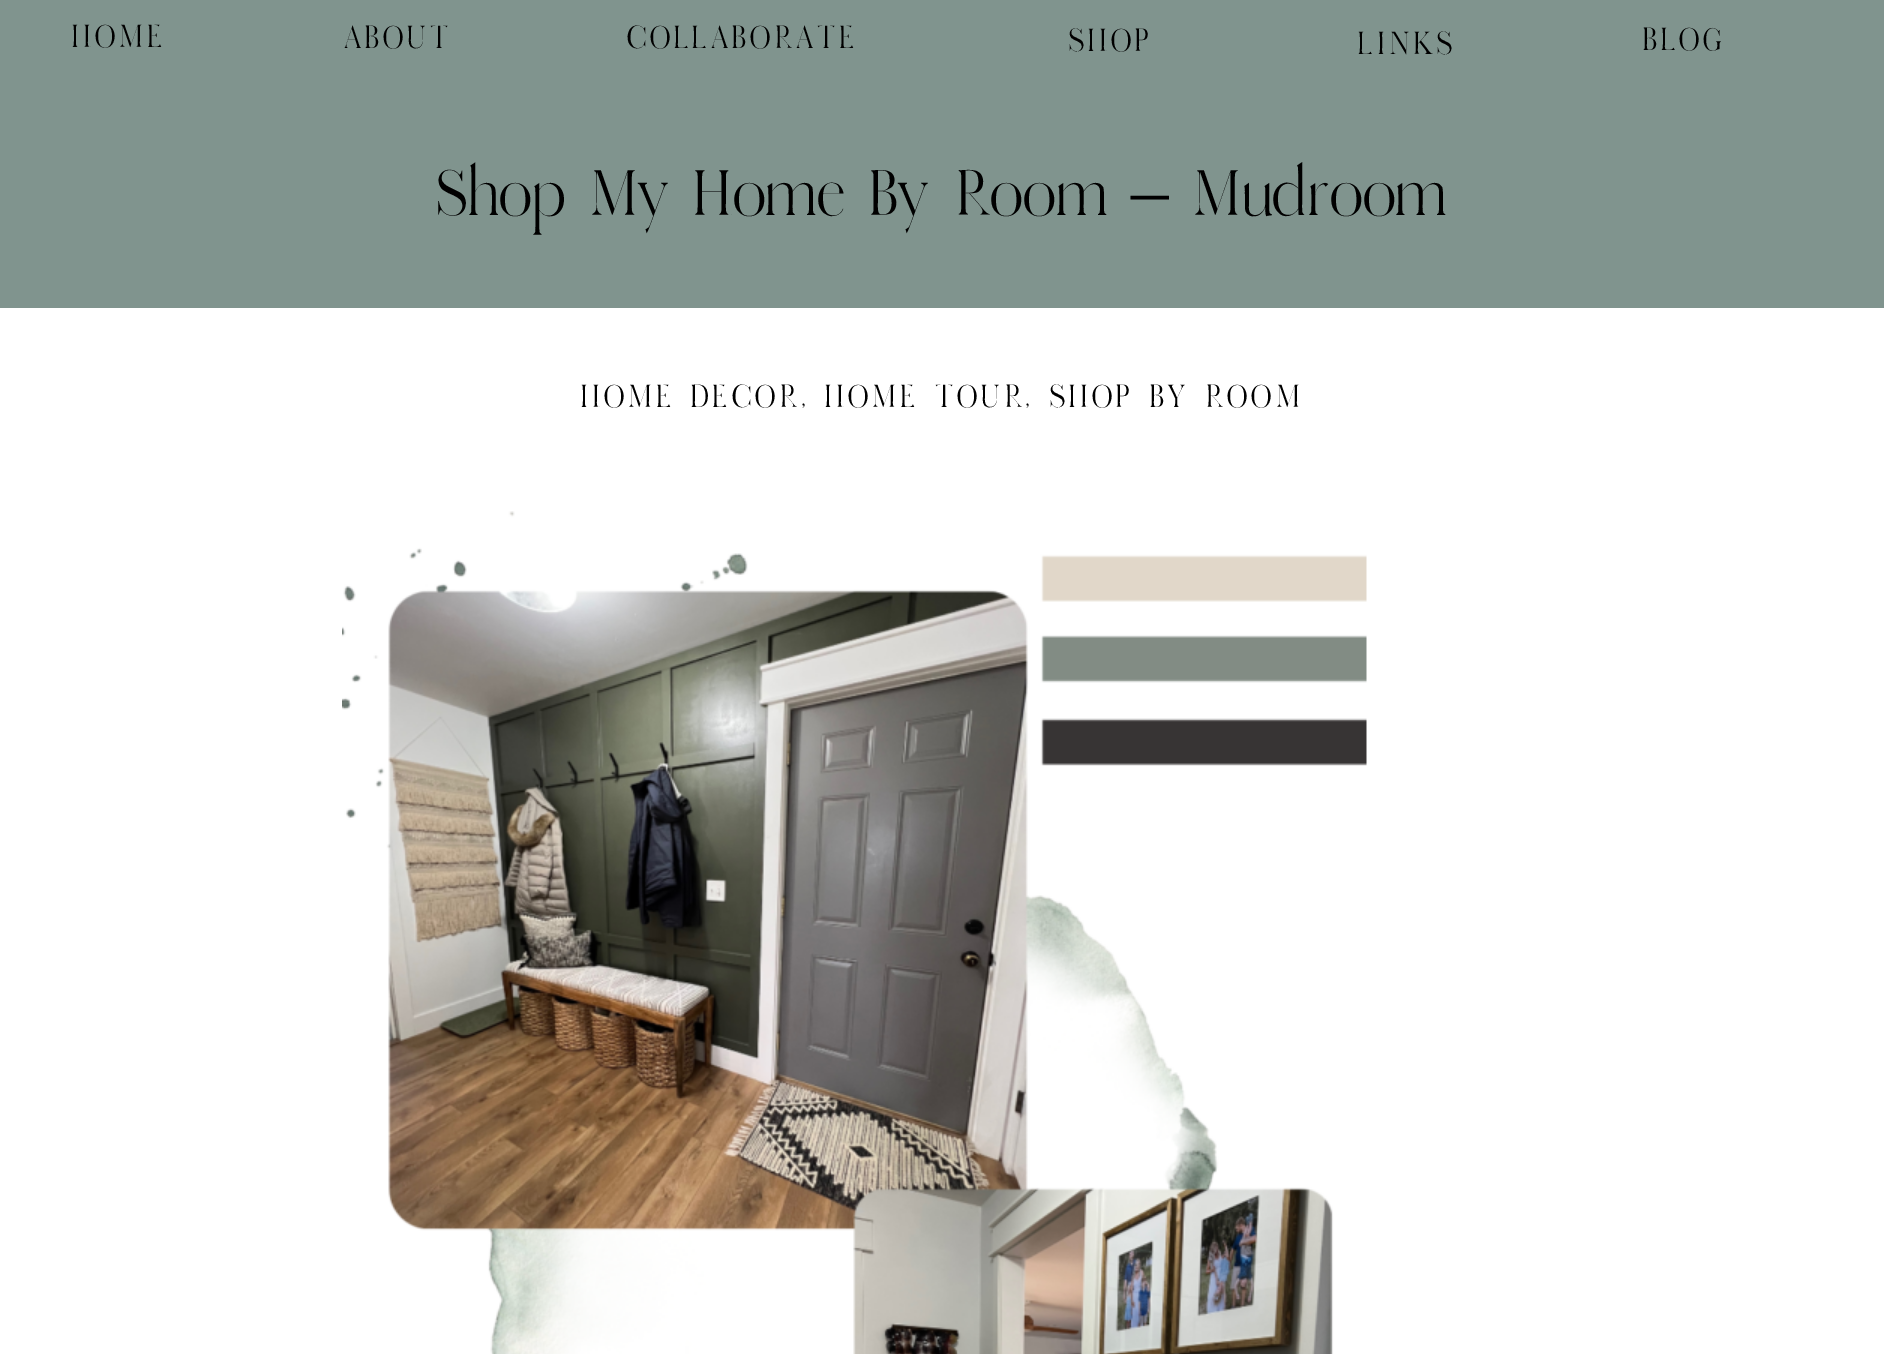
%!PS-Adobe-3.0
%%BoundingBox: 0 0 1884 1354
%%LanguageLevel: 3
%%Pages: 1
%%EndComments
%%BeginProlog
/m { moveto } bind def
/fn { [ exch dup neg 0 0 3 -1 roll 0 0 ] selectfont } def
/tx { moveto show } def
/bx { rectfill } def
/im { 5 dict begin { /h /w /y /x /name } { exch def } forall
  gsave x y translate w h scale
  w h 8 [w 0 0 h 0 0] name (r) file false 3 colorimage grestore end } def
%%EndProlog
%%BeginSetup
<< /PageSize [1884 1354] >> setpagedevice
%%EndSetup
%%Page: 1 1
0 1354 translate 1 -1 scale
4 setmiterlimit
1 setgray
0 0 1884 1354 bx
0.502 0.58 0.557 setrgbcolor
0 0 1884 308 bx
/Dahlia-Regular 37.5 fn
0 setgray
72 47 m 3.75 0 (HOME) ashow
344 48 m 3.75 0 (ABOUT) ashow
627 48 m 3.75 0 (COLLABORATE) ashow
1069 51 m 3.75 0 (SHOP) ashow
1358 54 m 3.75 0 (LINKS) ashow
1643 50 m 3.75 0 (BLOG) ashow
/Dahlia-Regular 75 fn
(Shop My Home By Room) 437 215 tx
/LiberationSerif-Regular 75 fn
(–) 1131 215 tx
/Dahlia-Regular 75 fn
(Mudroom) 1193 215 tx
/Dahlia-Regular 37.5 fn
581 407 m 3.75 0 (HOME DECOR, HOME TOUR, SHOP BY ROOM) ashow
(image0.raw) 342 511 1025 843 im
showpage
%%EOF
